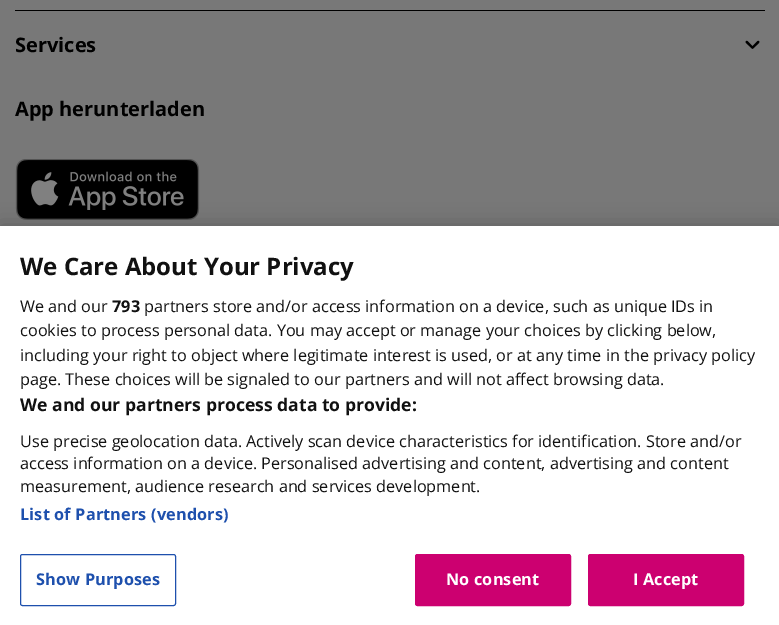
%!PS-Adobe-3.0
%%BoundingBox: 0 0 779 625
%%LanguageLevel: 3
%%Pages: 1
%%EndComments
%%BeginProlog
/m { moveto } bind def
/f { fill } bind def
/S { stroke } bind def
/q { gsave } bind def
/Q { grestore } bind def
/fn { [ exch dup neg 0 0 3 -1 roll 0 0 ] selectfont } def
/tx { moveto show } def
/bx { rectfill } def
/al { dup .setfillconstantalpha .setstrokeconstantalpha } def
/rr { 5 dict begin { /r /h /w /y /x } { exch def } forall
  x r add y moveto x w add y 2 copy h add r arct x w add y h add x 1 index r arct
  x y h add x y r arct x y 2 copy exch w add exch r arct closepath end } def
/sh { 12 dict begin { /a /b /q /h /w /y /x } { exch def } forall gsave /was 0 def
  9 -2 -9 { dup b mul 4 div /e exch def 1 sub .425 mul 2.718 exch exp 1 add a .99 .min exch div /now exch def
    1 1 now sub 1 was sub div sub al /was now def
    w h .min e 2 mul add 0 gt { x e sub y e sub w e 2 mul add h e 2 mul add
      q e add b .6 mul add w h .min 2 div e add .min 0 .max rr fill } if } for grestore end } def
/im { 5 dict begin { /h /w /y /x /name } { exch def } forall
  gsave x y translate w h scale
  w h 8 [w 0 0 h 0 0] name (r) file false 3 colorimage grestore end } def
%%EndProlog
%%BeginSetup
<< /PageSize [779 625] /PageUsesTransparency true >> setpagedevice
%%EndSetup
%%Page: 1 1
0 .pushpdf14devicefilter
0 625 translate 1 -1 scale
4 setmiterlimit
0.471 setgray
0 0 779 625 bx
0 setgray
15 10 750 1 bx
/OpenSans-Bold 20 fn
(Services) 15 52 tx
(image0.raw) 745 40 15 9 im
(App herunterladen) 15 116 tx
(image1.raw) 15 159 185 61 im
0 226 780 399 0 11 0.2 sh
1 setgray
0 226 779 399 bx
/OpenSans-Bold 24 fn
0.067 setgray
(We Care About Your Privacy) 20 275 tx
/OpenSans-Regular 16.25 fn
(We and our) 20 312 tx
/OpenSans-Bold 16.25 fn
(793) 112 312 tx
/OpenSans-Regular 16.25 fn
(partners store and/or access information on a device, such as unique IDs in) 144 312 tx
(cookies to process personal data. You may accept or manage your choices by clicking below,) 20 336 tx
(including your right to object where legitimate interest is used, or at any time in the privacy policy) 20 361 tx
(page. These choices will be signaled to our partners and will not affect browsing data.) 20 385 tx
/OpenSans-Bold 17.6 fn
(We and our partners process data to provide:) 20 411 tx
/OpenSans-Regular 16.25 fn
(Use precise geolocation data. Actively scan device characteristics for identification. Store and/or) 20 447 tx
(access information on a device. Personalised advertising and content, advertising and content) 20 469 tx
(measurement, audience research and services development.) 20 492 tx
/OpenSans-Bold 16.25 fn
0.118 0.314 0.678 setrgbcolor
20 520 m 0.15 0 (List of Partners \(vendors\)) ashow
20.5 554.5 155 51 2 rr S
36 585 m 0.15 0 (Show Purposes) ashow
0.8 0 0.439 setrgbcolor
415.5 554.5 155 51 2 rr q f Q
S
1 setgray
446 585 m 0.15 0 (No consent) ashow
0.8 0 0.439 setrgbcolor
588.5 554.5 155 51 2 rr q f Q
S
1 setgray
633 585 m 0.15 0 (I Accept) ashow
.poppdf14devicefilter showpage
%%EOF
